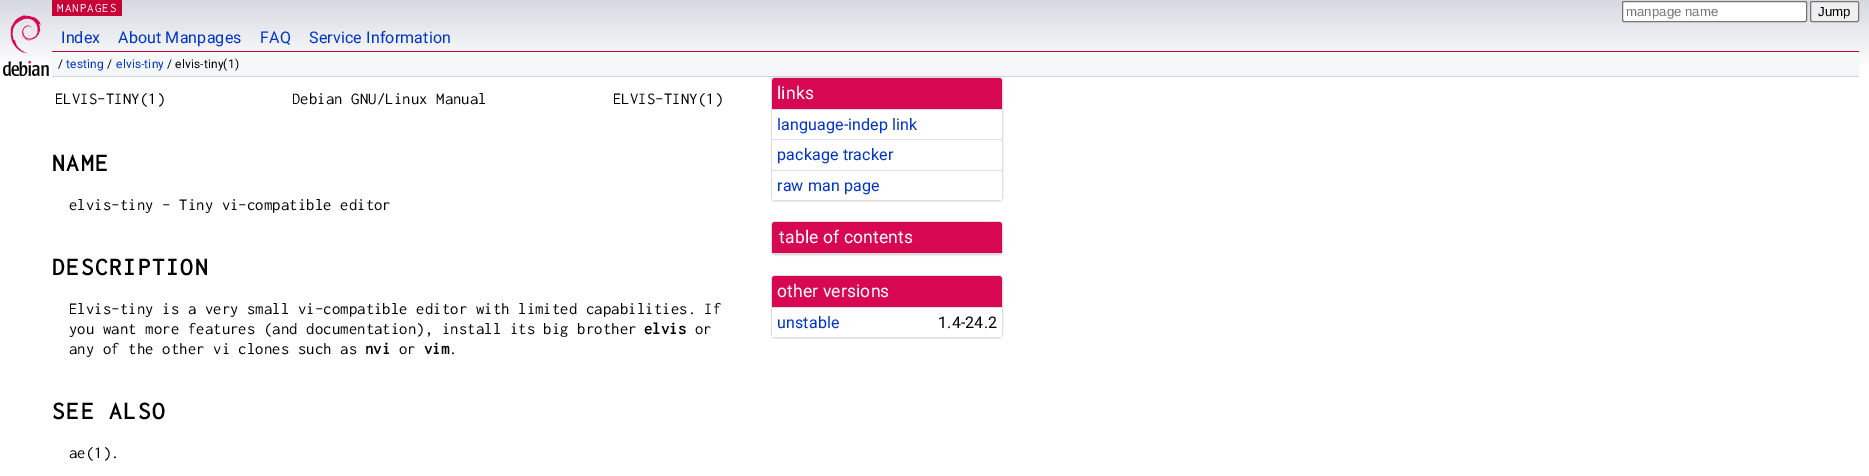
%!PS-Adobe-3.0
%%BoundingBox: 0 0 1869 476
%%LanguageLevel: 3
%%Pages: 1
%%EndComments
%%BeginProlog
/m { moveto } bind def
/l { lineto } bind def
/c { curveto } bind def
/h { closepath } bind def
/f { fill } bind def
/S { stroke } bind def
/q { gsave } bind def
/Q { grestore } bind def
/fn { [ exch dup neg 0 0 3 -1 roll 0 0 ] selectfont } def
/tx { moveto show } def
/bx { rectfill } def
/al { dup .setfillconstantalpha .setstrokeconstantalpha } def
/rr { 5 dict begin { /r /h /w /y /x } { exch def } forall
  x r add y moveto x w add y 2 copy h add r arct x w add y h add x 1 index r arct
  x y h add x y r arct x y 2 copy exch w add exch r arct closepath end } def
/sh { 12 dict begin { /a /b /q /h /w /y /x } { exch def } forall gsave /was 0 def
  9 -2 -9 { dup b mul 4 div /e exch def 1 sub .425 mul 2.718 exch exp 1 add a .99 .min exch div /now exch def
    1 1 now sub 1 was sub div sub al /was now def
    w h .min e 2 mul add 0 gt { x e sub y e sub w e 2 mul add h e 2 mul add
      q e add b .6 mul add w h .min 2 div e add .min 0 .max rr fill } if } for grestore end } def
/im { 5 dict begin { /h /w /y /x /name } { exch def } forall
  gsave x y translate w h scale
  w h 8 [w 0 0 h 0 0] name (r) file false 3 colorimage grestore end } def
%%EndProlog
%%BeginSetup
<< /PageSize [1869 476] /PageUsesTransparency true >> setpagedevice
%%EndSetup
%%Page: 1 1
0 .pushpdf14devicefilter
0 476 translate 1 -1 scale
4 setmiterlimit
1 setgray
0 0 1869 476 bx
q 0 0 m 1869 0 l 1869 65 l 0 65 l h clip newpath
<< /ShadingType 2 /ColorSpace /DeviceRGB /Coords [935 0 935 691] /Extend [true true] /Function << /FunctionType 3 /Domain [0 1] /Functions [<< /FunctionType 2 /Domain [0 1] /C0 [0.843 0.851 0.886] /C1 [1 1 1] /N 1 >> << /FunctionType 2 /Domain [0 1] /C0 [1 1 1] /C1 [1 1 1] /N 1 >>] /Bounds [0.1] /Encode [0 1 0 1] >> >> shfill Q
0.78 0 0.212 setrgbcolor
52 0 70 16 bx
/Inconsolata-Regular 13 fn
1 setgray
57 12 m 1 0 (MANPAGES) ashow
1622.5 1.5 184 20 1.5 rr q f Q
0.463 setgray
S
/LiberationSans-Regular 13.25 fn
0.459 setgray
(manpage name) 1626 16 tx
0.937 setgray
1810.5 1.5 48 20 1.5 rr q f Q
0.463 setgray
S
0 setgray
(Jump) 1818 16 tx
(image0.raw) 3 15 46 61 im
0.78 0 0.212 setrgbcolor
52 51 1807 1 bx
/Roboto-Regular 16 fn
0 0.208 0.78 setrgbcolor
61 43 m 0.15 0 (Index) ashow
118 43 m 0.15 0 (About Manpages) ashow
260 43 m 0.15 0 (FAQ) ashow
309 43 m 0.15 0 (Service Information) ashow
0.961 0.965 0.969 setrgbcolor
52 56 1807 20 bx
0.824 0.827 0.843 setrgbcolor
52 76 1807 1 bx
/Roboto-Regular 12 fn
0 setgray
58 68 m 0.15 0 (/) ashow
0 0.208 0.78 setrgbcolor
66 68 m 0.15 0 (testing) ashow
0 setgray
107 68 m 0.15 0 (/) ashow
0 0.208 0.78 setrgbcolor
116 68 m 0.15 0 (elvis-tiny) ashow
0 setgray
167 68 m 0.15 0 (/ elvis-tiny\(1\)) ashow
/Inconsolata-Regular 16.65 fn
55 104 m 0.15 0 (ELVIS-TINY\(1\)) ashow
292 104 m 0.15 0 (Debian GNU/Linux Manual) ashow
613 104 m 0.15 0 (ELVIS-TINY\(1\)) ashow
/Inconsolata-Bold 25 fn
52 171 m 1.75 0 (NAME) ashow
/Inconsolata-Regular 16.65 fn
69 210 m 0.15 0 (elvis-tiny - Tiny vi-compatible editor) ashow
/Inconsolata-Bold 25 fn
52 275 m 1.75 0 (DESCRIPTION) ashow
/Inconsolata-Regular 16.65 fn
69 314 m 0.15 0 (Elvis-tiny is a very small vi-compatible editor with limited capabilities. If) ashow
69 334 m 0.15 0 (you want more features \(and documentation\), install its big brother) ashow
/Inconsolata-Bold 16.65 fn
644 334 m 0.15 0 (elvis) ashow
/Inconsolata-Regular 16.65 fn
695 334 m 0.15 0 (or) ashow
69 354 m 0.15 0 (any of the other vi clones such as) ashow
/Inconsolata-Bold 16.65 fn
365 354 m 0.15 0 (nvi) ashow
/Inconsolata-Regular 16.65 fn
399 354 m 0.15 0 (or) ashow
/Inconsolata-Bold 16.65 fn
424 354 m 0.15 0 (vim) ashow
/Inconsolata-Regular 16.65 fn
449 354 m 0.15 0 (.) ashow
/Inconsolata-Bold 25 fn
52 419 m 1.75 0 (SEE ALSO) ashow
/Inconsolata-Regular 16.65 fn
69 458 m 0.15 0 (ae\(1\).) ashow
771 78 232 124 4 0.5 0.05 sh
0.867 setgray
771.5 77.5 231 123 3.5 rr S
0.843 0.027 0.318 setrgbcolor
775 78 m 999 78 l 1000.5 78 1002 79.5 1002 81 c 1002 110 l 772 110 l 772 81 l 772 79.5 773.5 78 775 78 c h f
/Roboto-Regular 17.5 fn
1 setgray
777 99 m 0.15 0 (links) ashow
772 110 230 90 bx
0.867 setgray
772 109 230 1 bx
772 139 230 1 bx
/Roboto-Regular 16 fn
0 0.208 0.78 setrgbcolor
777 130 m 0.15 0 (language-indep link) ashow
0.867 setgray
772 170 230 1 bx
0 0.208 0.78 setrgbcolor
777 160 m 0.15 0 (package tracker) ashow
777 191 m 0.15 0 (raw man page) ashow
0 setgray
771 222 232 34 4 0.5 0.05 sh
0.867 setgray
771.5 221.5 231 33 3.5 rr S
0.843 0.027 0.318 setrgbcolor
775 222 m 999 222 l 1000.5 222 1002 223.5 1002 225 c 1002 254 l 772 254 l 772 225 l 772 223.5 773.5 222 775 222 c h f
0.867 setgray
772 253 230 1 bx
/Roboto-Regular 17.5 fn
1 setgray
779 243 m 0.15 0 (table of contents) ashow
0 setgray
771 276 232 63 4 0.5 0.05 sh
0.867 setgray
771.5 275.5 231 62 3.5 rr S
0.843 0.027 0.318 setrgbcolor
775 276 m 999 276 l 1000.5 276 1002 277.5 1002 279 c 1002 308 l 772 308 l 772 279 l 772 277.5 773.5 276 775 276 c h f
1 setgray
777 297 m 0.15 0 (other versions) ashow
772 308 230 29 bx
0.867 setgray
772 307 230 1 bx
/Roboto-Regular 16 fn
0 0.208 0.78 setrgbcolor
777 328 m 0.15 0 (unstable) ashow
0 setgray
938 328 m 0.15 0 (1.4-24.2) ashow
.poppdf14devicefilter showpage
%%EOF
